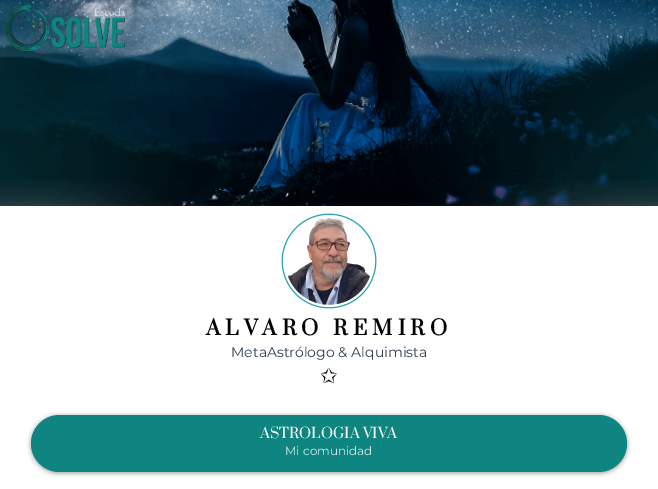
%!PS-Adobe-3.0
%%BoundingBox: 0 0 658 489
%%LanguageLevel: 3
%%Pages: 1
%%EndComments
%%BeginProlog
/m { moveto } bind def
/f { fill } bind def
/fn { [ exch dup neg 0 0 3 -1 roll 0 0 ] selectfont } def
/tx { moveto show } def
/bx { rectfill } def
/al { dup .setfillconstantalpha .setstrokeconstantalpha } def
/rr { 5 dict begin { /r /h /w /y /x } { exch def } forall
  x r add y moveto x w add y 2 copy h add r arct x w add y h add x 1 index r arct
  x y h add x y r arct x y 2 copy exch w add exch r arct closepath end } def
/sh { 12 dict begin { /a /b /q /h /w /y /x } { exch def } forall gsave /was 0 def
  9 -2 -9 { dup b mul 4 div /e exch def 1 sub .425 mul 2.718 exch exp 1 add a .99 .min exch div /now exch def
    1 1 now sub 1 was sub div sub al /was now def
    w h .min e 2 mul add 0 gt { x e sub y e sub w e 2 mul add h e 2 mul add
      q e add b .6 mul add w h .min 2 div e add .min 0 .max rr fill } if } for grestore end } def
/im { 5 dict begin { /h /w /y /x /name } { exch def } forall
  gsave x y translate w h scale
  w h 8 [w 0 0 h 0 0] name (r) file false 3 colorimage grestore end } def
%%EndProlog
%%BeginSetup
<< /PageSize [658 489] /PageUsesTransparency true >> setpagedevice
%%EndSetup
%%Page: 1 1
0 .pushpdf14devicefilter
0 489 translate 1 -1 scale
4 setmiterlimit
1 setgray
0 0 658 489 bx
(image0.raw) 0 0 658 206 im
(image1.raw) 5 5 120 46 im
(image2.raw) 281 213 96 96 im
/Prata-Bold 20 fn
0 setgray
206 335 m 5 0 (ALVARO REMIRO) ashow
/Montserrat-Regular 14 fn
0.184 0.247 0.314 setrgbcolor
(MetaAstrólogo & Alquimista) 231 357 tx
/DejaVuSans-Regular 21 fn
0 setgray
(✩) 320 383 tx
31 416 596 57 28.5 2.5 0.4 sh
0.055 0.522 0.506 setrgbcolor
31 415 596 57 28.5 rr f
/Prata-Regular 14 fn
1 setgray
(ASTROLOGIA VIVA) 260 438 tx
/Montserrat-Regular 12 fn
0.812 0.906 0.902 setrgbcolor
(Mi comunidad) 285 455 tx
.poppdf14devicefilter showpage
%%EOF
